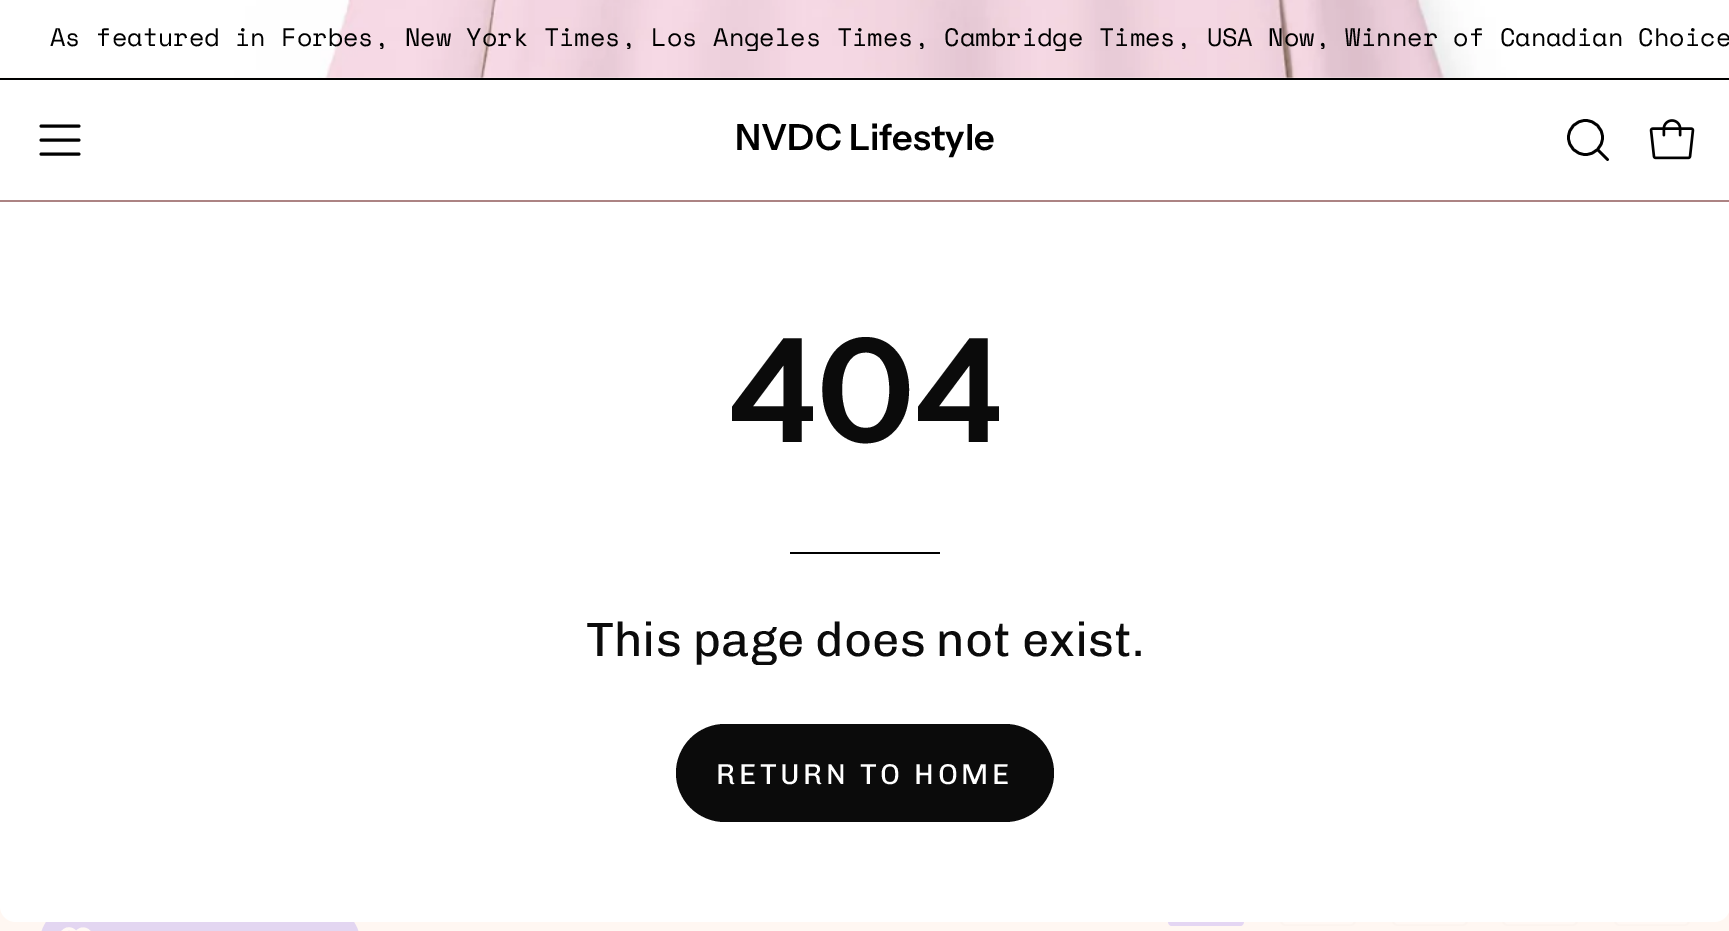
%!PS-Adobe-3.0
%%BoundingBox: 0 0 1729 931
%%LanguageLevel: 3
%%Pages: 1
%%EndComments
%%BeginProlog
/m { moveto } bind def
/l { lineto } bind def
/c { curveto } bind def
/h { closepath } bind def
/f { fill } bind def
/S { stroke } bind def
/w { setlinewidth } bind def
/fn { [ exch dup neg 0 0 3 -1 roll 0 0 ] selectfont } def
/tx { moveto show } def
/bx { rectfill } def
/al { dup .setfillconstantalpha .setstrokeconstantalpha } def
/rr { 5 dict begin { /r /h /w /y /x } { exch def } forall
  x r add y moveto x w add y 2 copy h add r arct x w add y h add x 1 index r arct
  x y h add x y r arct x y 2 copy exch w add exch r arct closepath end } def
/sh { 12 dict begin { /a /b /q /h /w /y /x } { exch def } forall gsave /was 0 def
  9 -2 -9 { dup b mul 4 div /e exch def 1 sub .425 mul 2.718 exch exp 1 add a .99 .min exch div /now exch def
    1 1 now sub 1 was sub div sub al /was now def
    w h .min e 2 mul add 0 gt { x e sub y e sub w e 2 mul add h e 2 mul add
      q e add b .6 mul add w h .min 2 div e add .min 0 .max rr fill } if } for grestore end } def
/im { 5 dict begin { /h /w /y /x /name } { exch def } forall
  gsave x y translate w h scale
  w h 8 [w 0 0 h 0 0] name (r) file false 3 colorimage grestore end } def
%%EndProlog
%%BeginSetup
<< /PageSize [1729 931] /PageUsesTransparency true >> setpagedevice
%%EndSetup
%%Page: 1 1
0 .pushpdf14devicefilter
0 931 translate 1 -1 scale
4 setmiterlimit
1 setgray
0 0 1729 931 bx
0 setgray
0 78 1729 2 bx
(image0.raw) 0 0 1729 78 im
/SpaceMono-Regular 25.2 fn
(As featured in Forbes, New York Times, Los Angeles Times, Cambridge Times, USA Now, Winner of Canadian Choice) 50 46 tx
2.9 w
1 setlinecap
1 setlinejoin
41 140 m 79 140 l 41 126 m 79 126 l 41 154 m 79 154 l S
/InstrumentSans-SemiBold 36 fn
(NVDC Lifestyle) 735 150 tx
2.7 w
1585.5 154.5 m 1595 154.5 1602.5 147 1602.5 137.5 c 1602.5 128 1595 120.5 1585.5 120.5 c 1576 120.5 1568.5 128 1568.5 137.5 c 1568.5 147 1576 154.5 1585.5 154.5 c h 1597.5 149.5 m 1607.5 159.5 l S
(image1.raw) 1649 119 46 41 im
1 0.969 0.949 setrgbcolor
0 906 1729 25 bx
0.329 0.2 0.922 setrgbcolor
40 906 320 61 36 rr f
1 setgray
3.3 w
0 setlinecap
74.5 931.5 m 76 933 l 77.5 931.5 79 930 81 929.5 c 87 927.5 93 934 90.5 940 c 89.5 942.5 86.5 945 84.5 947 c 76 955.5 l 67.5 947 l 65.5 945 62.5 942.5 61.5 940 c 58.5 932 68.5 925 74.5 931.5 c h S
(image2.raw) 1168 922 76 4 im
(image3.raw) 1280 922 76 4 im
(image3.raw) 1392 922 76 4 im
(image3.raw) 1502 922 76 4 im
(image3.raw) 1614 922 76 4 im
1 0.969 0.949 setrgbcolor
20 270 1690 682 0 25 1 sh
1 setgray
0 200 m 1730 200 l 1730 906 l 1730 915 1723 922 1714 922 c 16 922 l 7 922 0 915 0 906 c h f
0.675 0.514 0.514 setrgbcolor
0 200 1729 2 bx
/InstrumentSans-SemiBold 144 fn
0.043 setgray
(404) 728 442 tx
0 setgray
790 552 150 2 bx
/Chivo-Regular 48 fn
0.043 setgray
(This page does not exist.) 586 656 tx
676 724 378 98 49 rr f
/Chivo-Regular 28.75 fn
1 setgray
716 784 m 3.6 0 (RETURN TO HOME) ashow
.poppdf14devicefilter showpage
%%EOF
